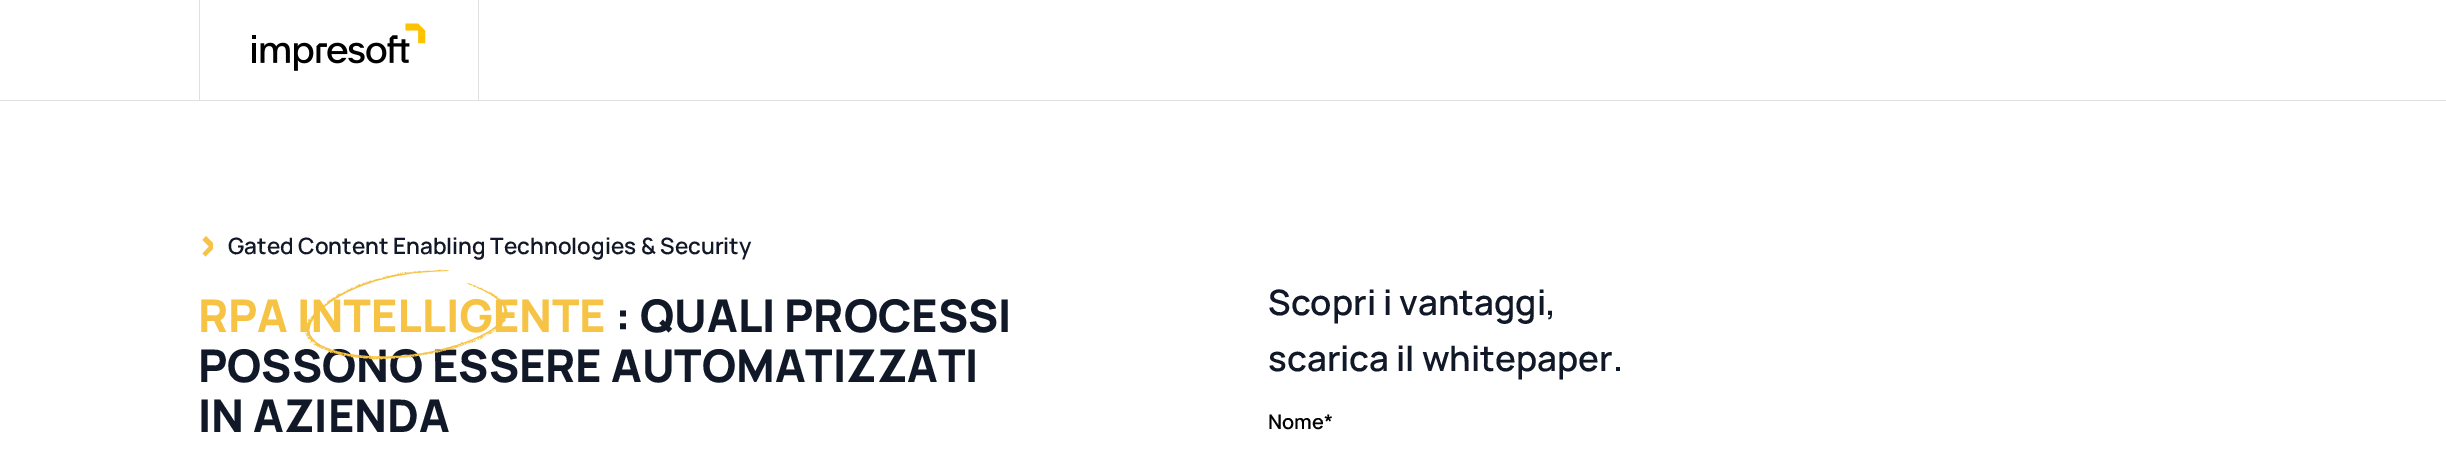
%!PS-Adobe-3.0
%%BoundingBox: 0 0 2446 450
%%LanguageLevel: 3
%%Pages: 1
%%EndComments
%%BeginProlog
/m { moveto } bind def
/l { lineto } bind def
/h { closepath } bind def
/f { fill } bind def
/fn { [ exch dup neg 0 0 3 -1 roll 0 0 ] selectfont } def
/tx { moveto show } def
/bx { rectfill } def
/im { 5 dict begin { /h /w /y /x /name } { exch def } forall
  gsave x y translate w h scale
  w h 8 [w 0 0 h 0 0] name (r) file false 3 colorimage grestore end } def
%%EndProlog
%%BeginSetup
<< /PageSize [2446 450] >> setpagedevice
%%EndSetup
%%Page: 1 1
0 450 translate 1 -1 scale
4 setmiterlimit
1 setgray
0 0 2446 450 bx
0.878 setgray
0 100 2446 1 bx
199 0 1 100 bx
478 0 1 100 bx
(image0.raw) 252 23 174 48 im
0.965 0.765 0.271 setrgbcolor
209 246.5 m 202.5 240 l 206 236 l 213 243 l 213 249 l 205.5 256.5 l 202.5 253.5 l h f
/Manrope-SemiBold 22.5 fn
0.067 0.094 0.153 setrgbcolor
(Gated Content Enabling Technologies & Security) 228 254 tx
/Manrope-ExtraBold 45 fn
0.965 0.765 0.271 setrgbcolor
(RPA INTELLIGENTE) 198 332 tx
0.067 0.094 0.153 setrgbcolor
(POSSONO ESSERE AUTOMATIZZATI) 198 382 tx
(image1.raw) 304 269 204 92 im
(: QUALI PROCESSI) 615 332 tx
(IN AZIENDA) 198 432 tx
/Manrope-SemiBold 35 fn
(Scopri i vantaggi,) 1268 315 tx
(scarica il whitepaper.) 1268 371 tx
/Manrope-SemiBold 20 fn
0 setgray
(Nome*) 1268 429 tx
showpage
%%EOF
